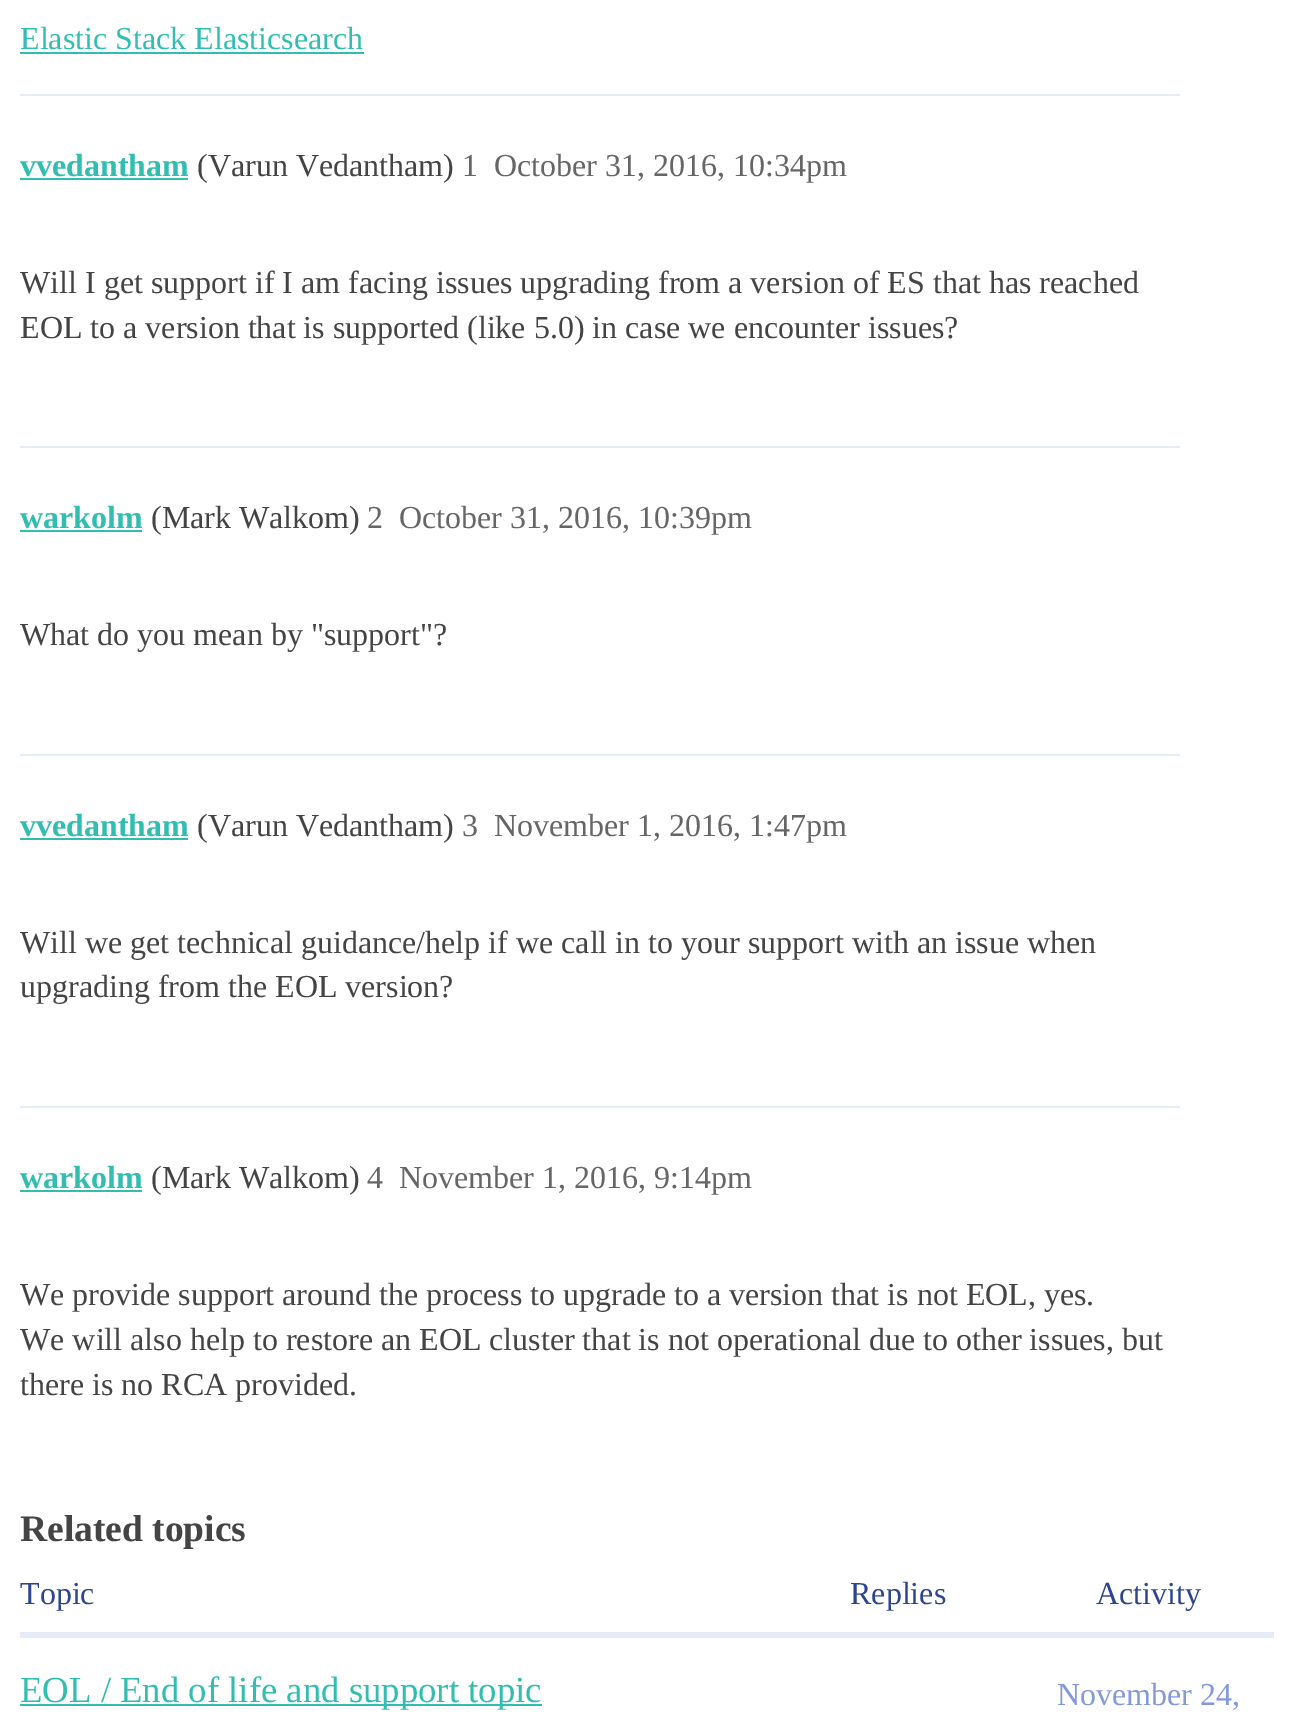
%!PS-Adobe-3.0
%%BoundingBox: 0 0 1294 1717
%%LanguageLevel: 3
%%Pages: 1
%%EndComments
%%BeginProlog
/fn { [ exch dup neg 0 0 3 -1 roll 0 0 ] selectfont } def
/tx { moveto show } def
/bx { rectfill } def
%%EndProlog
%%BeginSetup
<< /PageSize [1294 1717] >> setpagedevice
%%EndSetup
%%Page: 1 1
0 1717 translate 1 -1 scale
4 setmiterlimit
1 setgray
0 0 1294 1717 bx
/LiberationSerif-Regular 32 fn
0.192 0.745 0.694 setrgbcolor
(Elastic Stack Elasticsearch) 20 49 tx
20 52 344 2 bx
0.902 0.922 0.973 setrgbcolor
20 94 1160 2 bx
/LiberationSerif-Bold 32 fn
0.192 0.745 0.694 setrgbcolor
(vvedantham) 20 176 tx
20 178 168 2 bx
/LiberationSerif-Regular 32 fn
0.267 setgray
(\(Varun Vedantham\)) 197 176 tx
0.4 setgray
(1) 462 176 tx
(October 31, 2016, 10:34pm) 494 176 tx
0.267 setgray
(Will I get support if I am facing issues upgrading from a version of ES that has reached) 20 293 tx
(EOL to a version that is supported \(like 5.0\) in case we encounter issues?) 20 338 tx
0.902 0.922 0.973 setrgbcolor
20 446 1160 2 bx
/LiberationSerif-Bold 32 fn
0.192 0.745 0.694 setrgbcolor
(warkolm) 20 528 tx
20 530 122 2 bx
/LiberationSerif-Regular 32 fn
0.267 setgray
(\(Mark Walkom\)) 151 528 tx
0.4 setgray
(2) 367 528 tx
(October 31, 2016, 10:39pm) 399 528 tx
0.267 setgray
(What do you mean by "support"?) 20 645 tx
0.902 0.922 0.973 setrgbcolor
20 754 1160 2 bx
/LiberationSerif-Bold 32 fn
0.192 0.745 0.694 setrgbcolor
(vvedantham) 20 836 tx
20 838 168 2 bx
/LiberationSerif-Regular 32 fn
0.267 setgray
(\(Varun Vedantham\)) 197 836 tx
0.4 setgray
(3) 462 836 tx
(November 1, 2016, 1:47pm) 494 836 tx
0.267 setgray
(Will we get technical guidance/help if we call in to your support with an issue when) 20 953 tx
(upgrading from the EOL version?) 20 997 tx
0.902 0.922 0.973 setrgbcolor
20 1106 1160 2 bx
/LiberationSerif-Bold 32 fn
0.192 0.745 0.694 setrgbcolor
(warkolm) 20 1188 tx
20 1190 122 2 bx
/LiberationSerif-Regular 32 fn
0.267 setgray
(\(Mark Walkom\)) 151 1188 tx
0.4 setgray
(4) 367 1188 tx
(November 1, 2016, 9:14pm) 399 1188 tx
0.267 setgray
(We provide support around the process to upgrade to a version that is not EOL, yes.) 20 1305 tx
(We will also help to restore an EOL cluster that is not operational due to other issues, but) 20 1350 tx
(there is no RCA provided.) 20 1395 tx
/LiberationSerif-Bold 37.5 fn
(Related topics) 20 1541 tx
/LiberationSerif-Regular 32 fn
0.169 0.271 0.565 setrgbcolor
(Topic) 20 1604 tx
(Replies) 850 1604 tx
(Activity) 1096 1604 tx
0.902 0.922 0.973 setrgbcolor
20 1632 1254 6 bx
0.192 0.745 0.694 setrgbcolor
20 1704 522 2 bx
/LiberationSerif-Regular 36.75 fn
(EOL / End of life and support topic) 20 1702 tx
/LiberationSerif-Regular 32 fn
0.514 0.6 0.855 setrgbcolor
(November 24,) 1057 1705 tx
showpage
%%EOF
